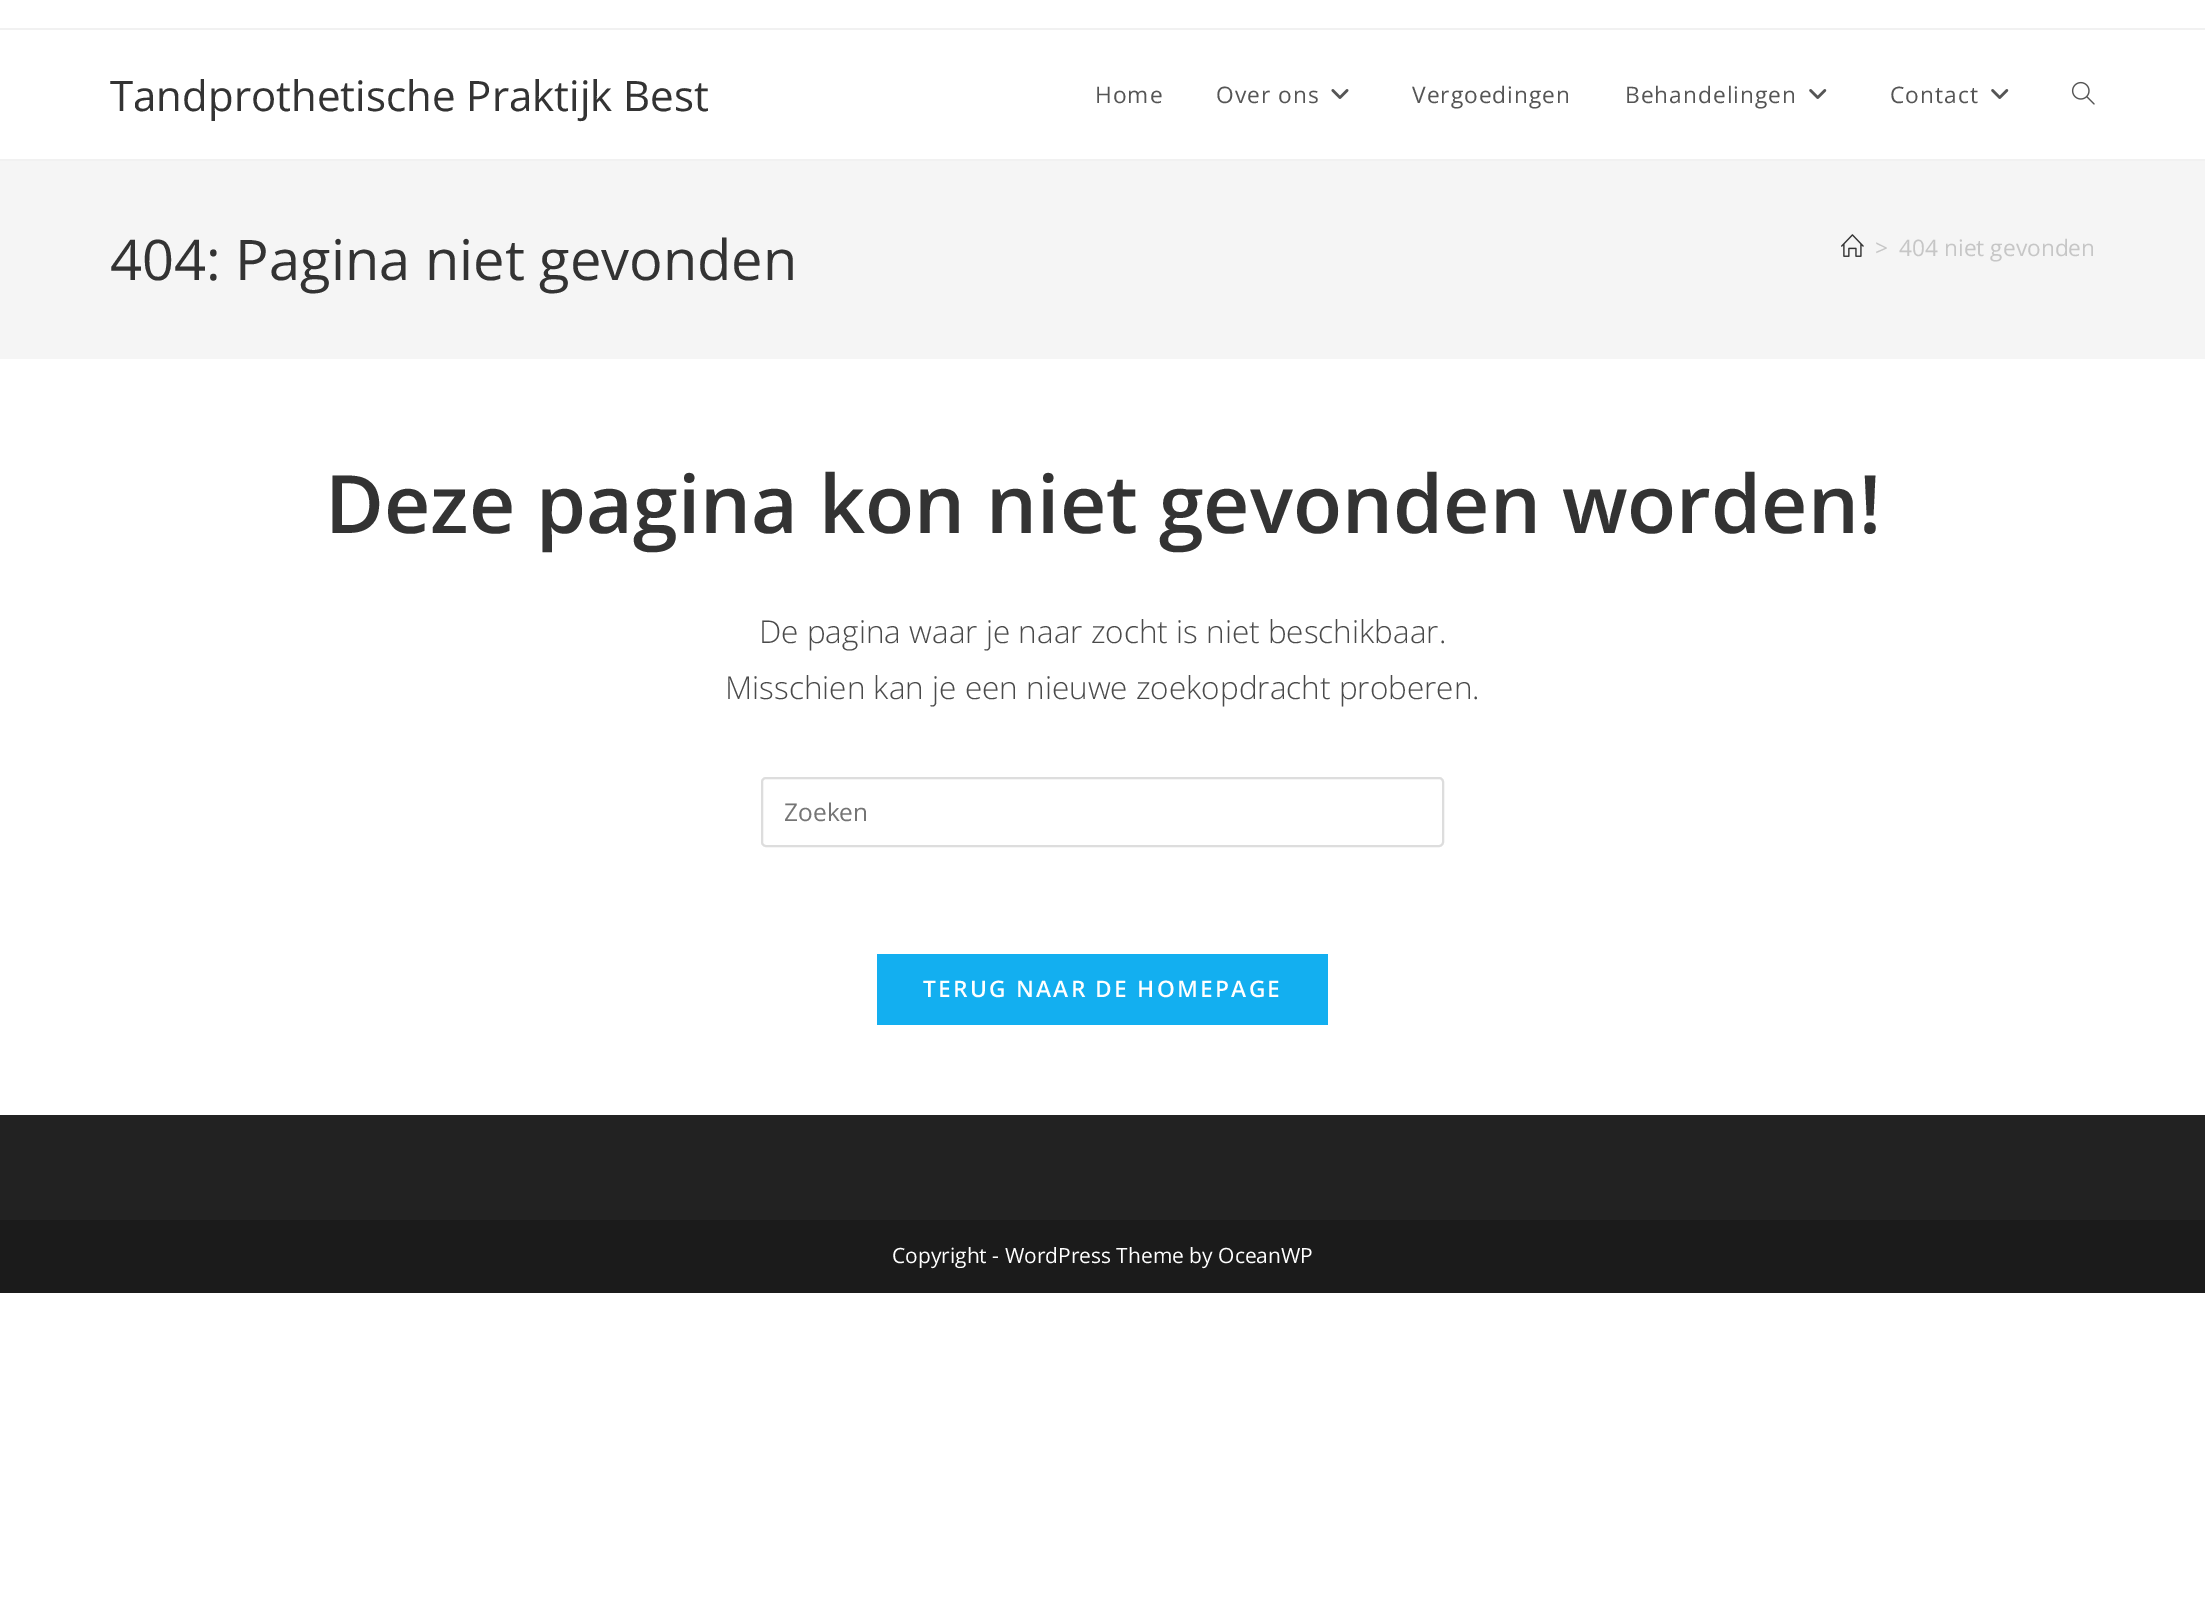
%!PS-Adobe-3.0
%%BoundingBox: 0 0 2205 1600
%%LanguageLevel: 3
%%Pages: 1
%%EndComments
%%BeginProlog
/m { moveto } bind def
/S { stroke } bind def
/w { setlinewidth } bind def
/fn { [ exch dup neg 0 0 3 -1 roll 0 0 ] selectfont } def
/tx { moveto show } def
/bx { rectfill } def
/rr { 5 dict begin { /r /h /w /y /x } { exch def } forall
  x r add y moveto x w add y 2 copy h add r arct x w add y h add x 1 index r arct
  x y h add x y r arct x y 2 copy exch w add exch r arct closepath end } def
/im { 5 dict begin { /h /w /y /x /name } { exch def } forall
  gsave x y translate w h scale
  w h 8 [w 0 0 h 0 0] name (r) file false 3 colorimage grestore end } def
%%EndProlog
%%BeginSetup
<< /PageSize [2205 1600] >> setpagedevice
%%EndSetup
%%Page: 1 1
0 1600 translate 1 -1 scale
4 setmiterlimit
1 setgray
0 0 2205 1600 bx
0.945 setgray
0 28 2205 2 bx
0 159 2205 2 bx
/OpenSans-Regular 42 fn
0.2 setgray
(Tandprothetische Praktijk Best) 110 111 tx
/OpenSans-Regular 22.75 fn
0.333 setgray
1095 103 m 1 0 (Home) ashow
1216 103 m 1 0 (Over ons) ashow
(image0.raw) 1331 89 18 10 im
1412 103 m 1 0 (Vergoedingen) ashow
1625 103 m 1 0 (Behandelingen) ashow
(image1.raw) 1809 89 18 10 im
1890 103 m 1 0 (Contact) ashow
(image1.raw) 1991 89 18 10 im
(image2.raw) 2071 81 24 24 im
0.961 setgray
0 161 2205 198 bx
/OpenSans-Regular 56 fn
0.2 setgray
(404: Pagina niet gevonden) 110 280 tx
(image3.raw) 1841 234 23 23 im
/OpenSans-Regular 22.75 fn
0.776 setgray
(>) 1875 256 tx
(404 niet gevonden) 1899 256 tx
/OpenSans-SemiBold 80.5 fn
0.2 setgray
(Deze pagina kon niet gevonden worden!) 325 533 tx
/OpenSans-Light 31.5 fn
0.29 setgray
(De pagina waar je naar zocht is niet beschikbaar.) 759 643 tx
(Misschien kan je een nieuwe zoekopdracht proberen.) 725 699 tx
0.867 setgray
2 w
762 778 681 68 4 rr S
/OpenSans-Regular 24.5 fn
0.459 setgray
(Zoeken) 784 821 tx
0.075 0.686 0.941 setrgbcolor
877 954 451 71 bx
/OpenSans-SemiBold 22.75 fn
1 setgray
923 997 m 2.25 0 (TERUG NAAR DE HOMEPAGE) ashow
0.133 setgray
0 1115 2205 105 bx
0.106 setgray
0 1220 2205 73 bx
/OpenSans-Regular 21 fn
1 setgray
(Copyright - WordPress Theme by OceanWP) 892 1263 tx
showpage
%%EOF
